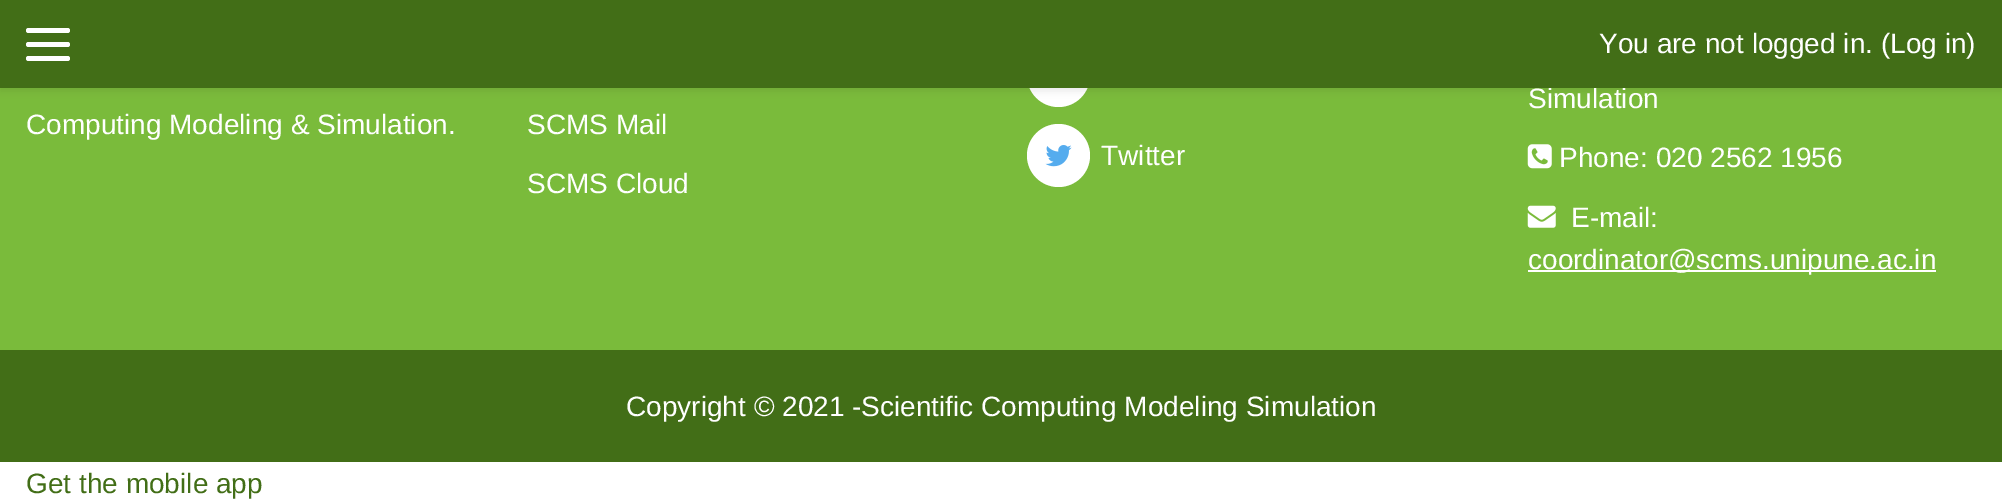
%!PS-Adobe-3.0
%%BoundingBox: 0 0 2002 504
%%LanguageLevel: 3
%%Pages: 1
%%EndComments
%%BeginProlog
/f { fill } bind def
/fn { [ exch dup neg 0 0 3 -1 roll 0 0 ] selectfont } def
/tx { moveto show } def
/bx { rectfill } def
/al { dup .setfillconstantalpha .setstrokeconstantalpha } def
/ci { newpath 0 360 arc closepath } def
/rr { 5 dict begin { /r /h /w /y /x } { exch def } forall
  x r add y moveto x w add y 2 copy h add r arct x w add y h add x 1 index r arct
  x y h add x y r arct x y 2 copy exch w add exch r arct closepath end } def
/sh { 12 dict begin { /a /b /q /h /w /y /x } { exch def } forall gsave /was 0 def
  9 -2 -9 { dup b mul 4 div /e exch def 1 sub .425 mul 2.718 exch exp 1 add a .99 .min exch div /now exch def
    1 1 now sub 1 was sub div sub al /was now def
    w h .min e 2 mul add 0 gt { x e sub y e sub w e 2 mul add h e 2 mul add
      q e add b .6 mul add w h .min 2 div e add .min 0 .max rr fill } if } for grestore end } def
/im { 5 dict begin { /h /w /y /x /name } { exch def } forall
  gsave x y translate w h scale
  w h 8 [w 0 0 h 0 0] name (r) file false 3 colorimage grestore end } def
%%EndProlog
%%BeginSetup
<< /PageSize [2002 504] /PageUsesTransparency true >> setpagedevice
%%EndSetup
%%Page: 1 1
0 .pushpdf14devicefilter
0 504 translate 1 -1 scale
4 setmiterlimit
1 setgray
0 0 2002 504 bx
0.478 0.733 0.231 setrgbcolor
0 88 2002 262 bx
1 setgray
1058.5 75.5 31.5 ci f
0 setgray
0 4 2002 87 0 3.5 0.08 sh
/LiberationSans-Regular 28 fn
1 setgray
(Simulation) 1528 108 tx
0.259 0.431 0.09 setrgbcolor
0 0 2002 88 bx
1 setgray
26 28 44 5 2.5 rr f
26 42 44 5 2.5 rr f
26 56 44 5 2.5 rr f
(You are not logged in. \(Log in\)) 1599 53 tx
(Computing Modeling & Simulation.) 26 134 tx
(SCMS Mail) 527 134 tx
(SCMS Cloud) 527 193 tx
1058.5 155.5 31.5 ci f
(image0.raw) 1045 145 27 22 im
(Twitter) 1101 165 tx
(image1.raw) 1527 144 25 25 im
(Phone: 020 2562 1956) 1559 167 tx
(image2.raw) 1527 205 29 23 im
(E-mail:) 1571 227 tx
1528 270 408 2 bx
(coordinator@scms.unipune.ac.in) 1528 269 tx
0.259 0.431 0.09 setrgbcolor
0 350 2002 112 bx
1 setgray
(Copyright © 2021 -Scientific Computing Modeling Simulation) 626 416 tx
0.259 0.431 0.09 setrgbcolor
(Get the mobile app) 26 493 tx
.poppdf14devicefilter showpage
%%EOF
